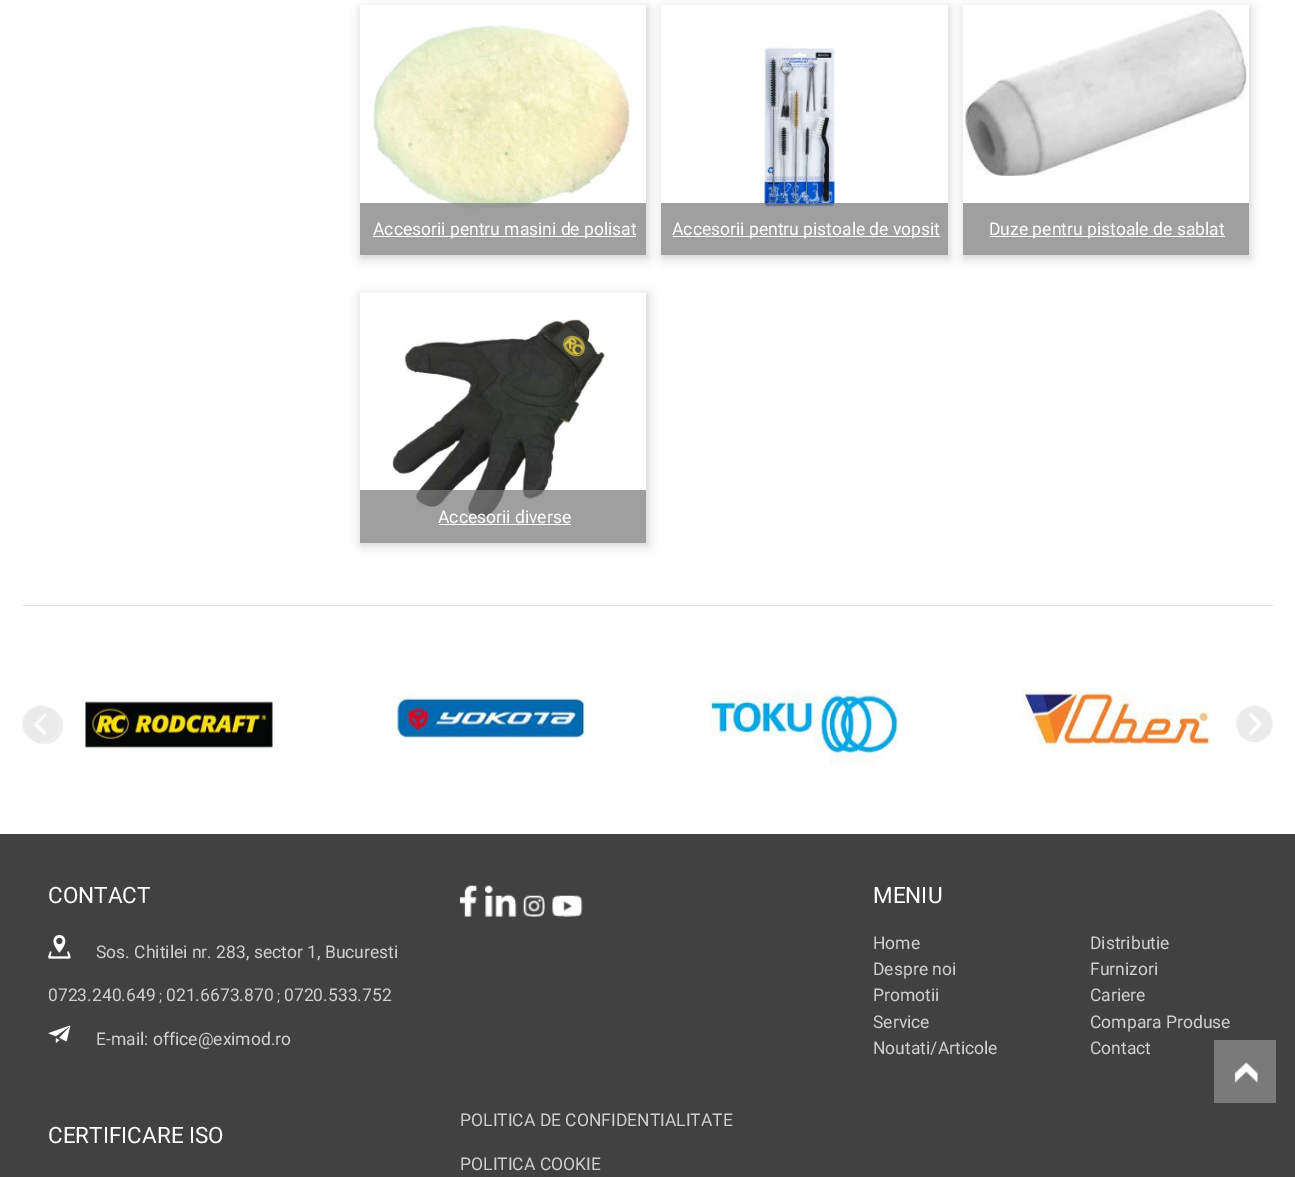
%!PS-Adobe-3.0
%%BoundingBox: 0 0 1295 1177
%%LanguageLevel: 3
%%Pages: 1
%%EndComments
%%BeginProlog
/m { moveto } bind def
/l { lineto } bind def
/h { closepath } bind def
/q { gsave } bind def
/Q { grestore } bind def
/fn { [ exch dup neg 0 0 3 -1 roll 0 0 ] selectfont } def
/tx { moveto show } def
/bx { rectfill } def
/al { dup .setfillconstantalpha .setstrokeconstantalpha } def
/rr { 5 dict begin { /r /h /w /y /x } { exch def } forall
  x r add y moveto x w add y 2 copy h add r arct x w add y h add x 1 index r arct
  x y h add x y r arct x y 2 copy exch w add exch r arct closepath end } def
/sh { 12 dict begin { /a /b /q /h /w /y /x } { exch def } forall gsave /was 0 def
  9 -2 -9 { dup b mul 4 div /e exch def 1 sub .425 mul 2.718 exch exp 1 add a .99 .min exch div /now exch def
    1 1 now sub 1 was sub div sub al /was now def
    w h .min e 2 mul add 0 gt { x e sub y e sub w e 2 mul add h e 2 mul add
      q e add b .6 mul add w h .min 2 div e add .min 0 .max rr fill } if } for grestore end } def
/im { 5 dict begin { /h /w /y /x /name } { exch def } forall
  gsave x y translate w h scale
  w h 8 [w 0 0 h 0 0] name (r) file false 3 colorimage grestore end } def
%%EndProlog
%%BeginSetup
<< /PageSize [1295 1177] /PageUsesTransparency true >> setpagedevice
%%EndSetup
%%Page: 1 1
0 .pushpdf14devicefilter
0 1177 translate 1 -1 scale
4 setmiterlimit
1 setgray
0 0 1295 1177 bx
q
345 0 m 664 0 l 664 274 l 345 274 l h 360 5 m 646 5 l 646 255 l 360 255 l h eoclip newpath
0.8 setgray
361 8 287 250 0 5 1 sh
Q
(image0.raw) 368 25 265 184 im
0.72 al
0.478 setgray
360 203 286 52 bx
1 al
1 setgray
373 236 263 1 bx
/Roboto-Regular 17.5 fn
(Accesorii pentru masini de polisat) 373 235 tx
q
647 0 m 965 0 l 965 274 l 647 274 l h 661 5 m 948 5 l 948 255 l 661 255 l h eoclip newpath
0.8 setgray
663 8 286 250 0 5 1 sh
Q
(image1.raw) 761 47 75 160 im
0.72 al
0.478 setgray
661 203 287 52 bx
1 al
1 setgray
673 236 267 1 bx
(Accesorii pentru pistoale de vopsit) 672 235 tx
q
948 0 m 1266 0 l 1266 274 l 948 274 l h 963 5 m 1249 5 l 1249 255 l 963 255 l h eoclip newpath
0.8 setgray
964 8 286 250 0 5 1 sh
Q
(image2.raw) 965 9 282 167 im
0.72 al
0.478 setgray
963 203 286 52 bx
1 al
1 setgray
990 236 235 1 bx
(Duze pentru pistoale de sablat) 989 235 tx
q
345 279 m 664 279 l 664 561 l 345 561 l h 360 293 m 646 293 l 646 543 l 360 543 l h eoclip newpath
0.8 setgray
361 295 287 250 0 5 1 sh
Q
(image3.raw) 392 319 213 199 im
0.72 al
0.478 setgray
360 490 286 53 bx
1 al
1 setgray
(Accesorii diverse) 438 523 tx
439 524 132 1 bx
0.886 setgray
23 605 1250 1 bx
(image4.raw) 22 705 37 37 im
(image5.raw) 32 707 31 38 im
(image6.raw) 85 701 188 50 im
(image7.raw) 397 691 188 50 im
(image8.raw) 710 690 188 76 im
(image9.raw) 1022 690 188 62 im
(image10.raw) 1236 705 37 37 im
0.255 setgray
0 834 1295 343 bx
/Roboto-Regular 22.5 fn
1 setgray
(CONTACT) 48 903 tx
(image11.raw) 48 934 23 25 im
/Roboto-Regular 17.5 fn
0.812 setgray
(Sos. Chitilei nr. 283, sector 1, Bucuresti) 96 958 tx
(0723.240.649) 48 1001 tx
/Roboto-Regular 15 fn
(;) 159 1001 tx
/Roboto-Regular 17.5 fn
(021.6673.870) 166 1001 tx
/Roboto-Regular 15 fn
(;) 277 1001 tx
/Roboto-Regular 17.5 fn
(0720.533.752) 284 1001 tx
(image12.raw) 48 1025 23 18 im
(E-mail: office@eximod.ro) 96 1045 tx
(image13.raw) 460 885 18 32 im
(image14.raw) 485 885 32 32 im
(image15.raw) 523 895 22 22 im
(image16.raw) 552 895 31 22 im
/Roboto-Regular 22.5 fn
1 setgray
(MENIU) 873 903 tx
/Roboto-Regular 17.5 fn
0.812 setgray
(Home) 873 949 tx
(Despre noi) 873 975 tx
(Promotii) 873 1001 tx
(Service) 873 1028 tx
(Noutati/Articole) 873 1054 tx
(Distributie) 1090 949 tx
(Furnizori) 1090 975 tx
(Cariere) 1090 1001 tx
(Compara Produse) 1090 1028 tx
(Contact) 1090 1054 tx
/Roboto-Regular 22.5 fn
1 setgray
(CERTIFICARE ISO) 48 1143 tx
/Roboto-Regular 17.5 fn
0.812 setgray
(POLITICA DE CONFIDENTIALITATE) 460 1126 tx
(POLITICA COOKIE) 460 1170 tx
0.478 setgray
1214 1040 62 63 bx
(image17.raw) 1234 1062 24 21 im
.poppdf14devicefilter showpage
%%EOF
